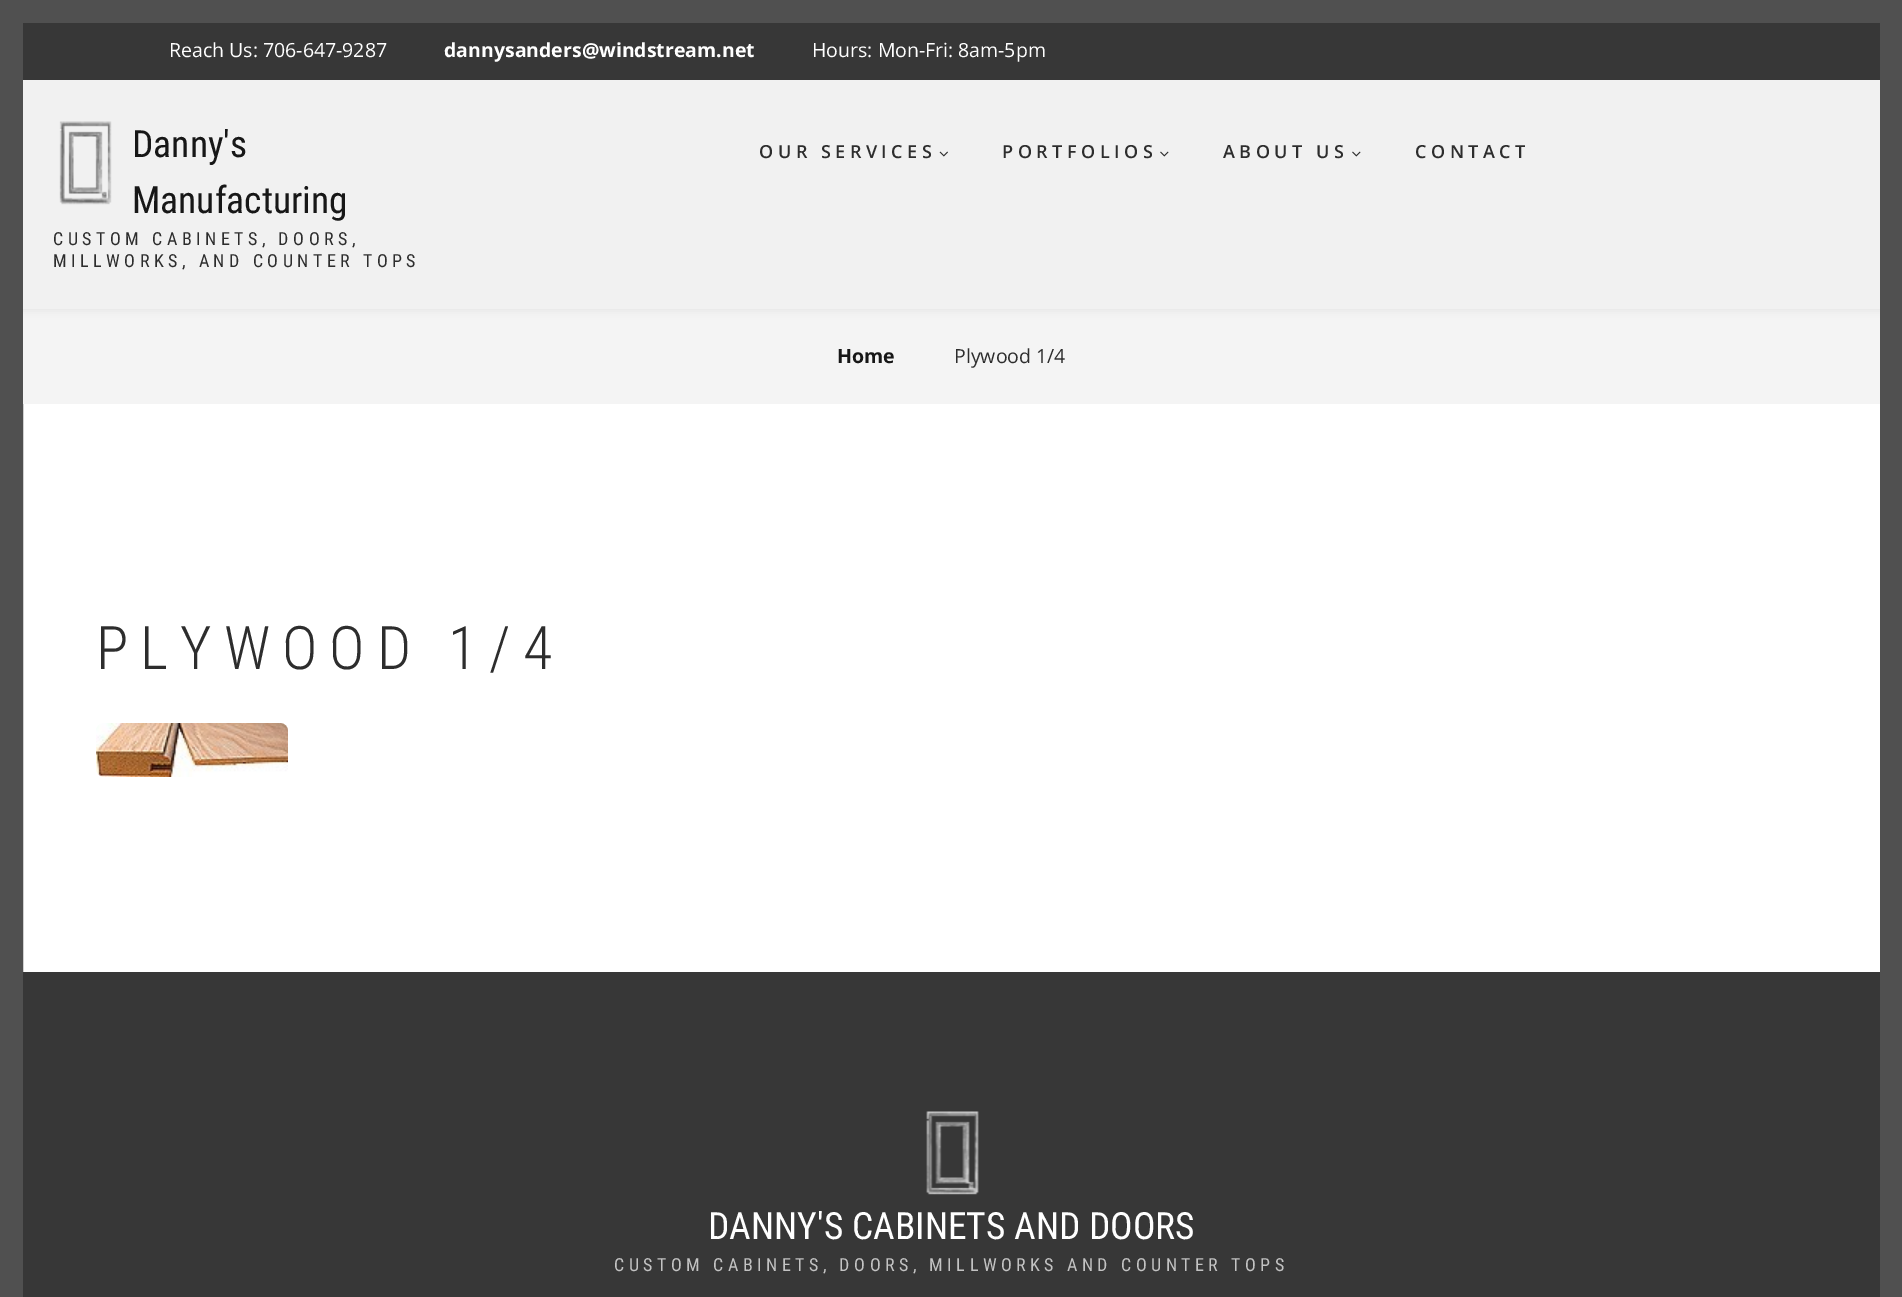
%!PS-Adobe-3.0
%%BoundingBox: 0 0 1902 1297
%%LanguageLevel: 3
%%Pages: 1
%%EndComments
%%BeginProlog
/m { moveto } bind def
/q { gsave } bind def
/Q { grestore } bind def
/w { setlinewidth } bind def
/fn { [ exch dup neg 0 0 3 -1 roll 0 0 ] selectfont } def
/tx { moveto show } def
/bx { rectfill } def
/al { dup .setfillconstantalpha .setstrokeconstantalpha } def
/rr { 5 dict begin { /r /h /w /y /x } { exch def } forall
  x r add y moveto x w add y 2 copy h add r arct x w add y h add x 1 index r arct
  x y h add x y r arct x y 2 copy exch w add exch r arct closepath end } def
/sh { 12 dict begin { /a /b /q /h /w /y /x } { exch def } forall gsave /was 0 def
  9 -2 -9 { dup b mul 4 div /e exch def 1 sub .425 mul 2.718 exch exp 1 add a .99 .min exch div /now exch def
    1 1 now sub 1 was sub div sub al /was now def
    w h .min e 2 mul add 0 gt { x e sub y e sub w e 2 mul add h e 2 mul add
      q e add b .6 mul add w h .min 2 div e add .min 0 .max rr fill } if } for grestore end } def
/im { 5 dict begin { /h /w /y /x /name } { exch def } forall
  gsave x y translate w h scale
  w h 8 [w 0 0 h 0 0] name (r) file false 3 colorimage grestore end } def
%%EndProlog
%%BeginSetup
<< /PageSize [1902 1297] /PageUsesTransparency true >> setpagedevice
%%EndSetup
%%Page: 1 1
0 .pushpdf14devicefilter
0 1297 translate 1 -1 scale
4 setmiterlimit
1 setgray
0 0 1902 1297 bx
0.314 setgray
23 w
11.5 11.5 1879 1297 rectstroke
0.957 setgray
23 309 1857 95 bx
q
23 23 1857 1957 rectclip
0 setgray
0 24 1902 287 0 4 0.05 sh
Q
0.216 setgray
23 23 1857 57 bx
/OpenSans-Regular 19.5 fn
1 setgray
(Reach Us: 706-647-9287) 169 57 tx
/OpenSans-Bold 19.5 fn
(dannysanders@windstream.net) 444 57 tx
/OpenSans-Regular 19.5 fn
(Hours: Mon-Fri: 8am-5pm) 812 57 tx
0.945 setgray
23 80 1857 229 bx
(image0.raw) 59 121 53 84 im
/RobotoCondensed-Regular 37.5 fn
0.09 setgray
(Danny's) 132 157 tx
(Manufacturing) 132 213 tx
/RobotoCondensed-Regular 18 fn
0.176 setgray
53 245 m 4.5 0 (CUSTOM CABINETS, DOORS,) ashow
53 267 m 4.5 0 (MILLWORKS, AND COUNTER TOPS) ashow
/OpenSans-SemiBold 18 fn
759 158 m 4.5 0 (OUR SERVICES) ashow
(image1.raw) 939 151 9 6 im
1002 158 m 4.5 0 (PORTFOLIOS) ashow
(image2.raw) 1160 151 9 6 im
1223 158 m 4.5 0 (ABOUT US) ashow
(image2.raw) 1352 151 9 6 im
1415 158 m 4.5 0 (CONTACT) ashow
/OpenSans-Bold 19.5 fn
0.09 setgray
(Home) 837 363 tx
/OpenSans-Regular 19.5 fn
0.176 setgray
(Plywood 1/4) 954 363 tx
1 setgray
1879 404 1 568 bx
/RobotoCondensed-Light 60 fn
0.176 setgray
96 669 m 12 0 (PLYWOOD 1/4) ashow
(image3.raw) 96 723 192 54 im
0.216 setgray
23 972 1857 325 bx
(image4.raw) 926 1111 53 84 im
/RobotoCondensed-Regular 37.5 fn
1 setgray
(DANNY'S CABINETS AND DOORS) 708 1239 tx
/RobotoCondensed-Regular 18 fn
0.765 setgray
614 1271 m 4.5 0 (CUSTOM CABINETS, DOORS, MILLWORKS AND COUNTER TOPS) ashow
.poppdf14devicefilter showpage
%%EOF
